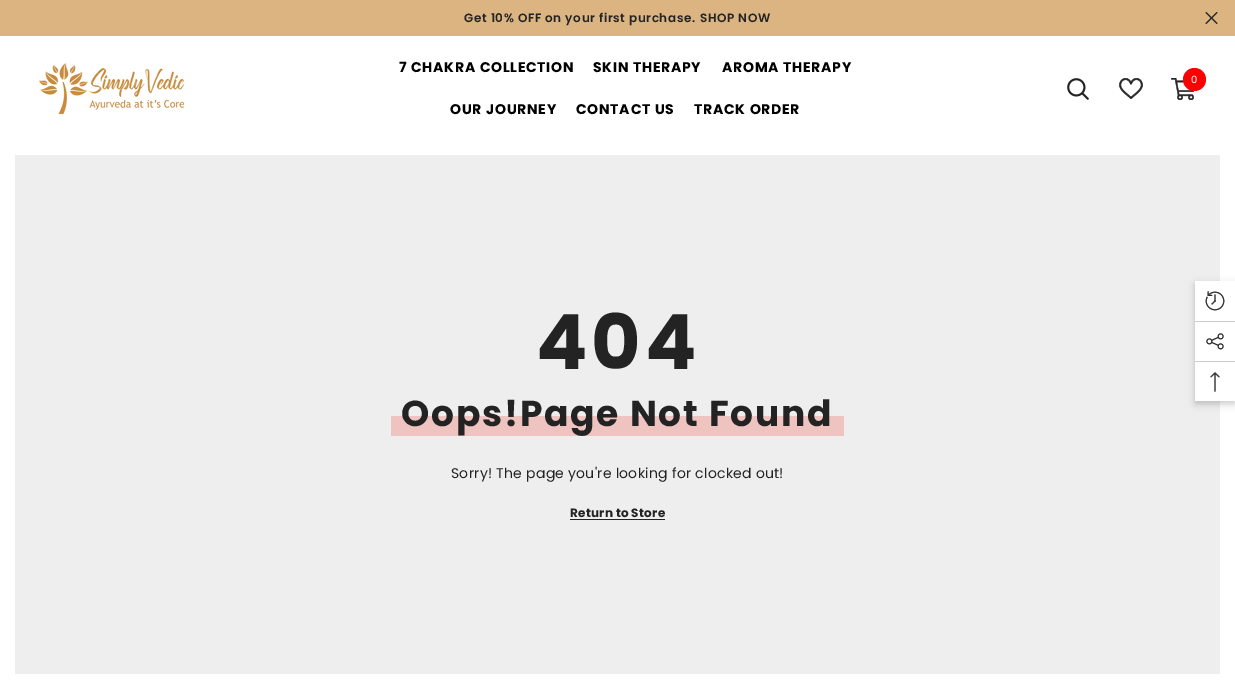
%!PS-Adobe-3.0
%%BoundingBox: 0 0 1235 682
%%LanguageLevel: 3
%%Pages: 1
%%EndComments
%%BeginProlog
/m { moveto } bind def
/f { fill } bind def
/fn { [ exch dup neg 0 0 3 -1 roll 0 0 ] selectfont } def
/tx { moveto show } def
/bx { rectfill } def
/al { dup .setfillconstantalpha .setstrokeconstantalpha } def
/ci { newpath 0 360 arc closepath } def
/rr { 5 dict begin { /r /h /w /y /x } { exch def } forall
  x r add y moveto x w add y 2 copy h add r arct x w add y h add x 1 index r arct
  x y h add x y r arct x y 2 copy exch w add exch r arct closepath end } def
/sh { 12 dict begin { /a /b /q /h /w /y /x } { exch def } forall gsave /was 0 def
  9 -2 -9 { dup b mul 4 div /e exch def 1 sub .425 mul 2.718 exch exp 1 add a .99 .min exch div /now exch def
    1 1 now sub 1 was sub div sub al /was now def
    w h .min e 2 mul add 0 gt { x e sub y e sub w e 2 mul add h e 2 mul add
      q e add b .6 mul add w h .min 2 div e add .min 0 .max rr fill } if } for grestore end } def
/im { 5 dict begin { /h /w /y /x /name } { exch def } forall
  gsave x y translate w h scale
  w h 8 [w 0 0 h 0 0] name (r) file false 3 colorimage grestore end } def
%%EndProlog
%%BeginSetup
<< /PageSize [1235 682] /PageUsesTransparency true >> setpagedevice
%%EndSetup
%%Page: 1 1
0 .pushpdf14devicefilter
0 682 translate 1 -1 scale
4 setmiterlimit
1 setgray
0 0 1235 682 bx
0.859 0.706 0.51 setrgbcolor
0 0 1235 36 bx
/Poppins-SemiBold 12 fn
0.137 setgray
464 22 m 0.6 0 (Get 10% OFF on your first purchase.) ashow
700 22 m 0.6 0 (SHOP NOW) ashow
(image0.raw) 1205 12 13 12 im
(image1.raw) 39 63 145 51 im
/Poppins-Bold 14 fn
0 setgray
399 72 m 0.75 0 (7 CHAKRA COLLECTION) ashow
593 72 m 0.75 0 (SKIN THERAPY) ashow
722 72 m 0.75 0 (AROMA THERAPY) ashow
450 114 m 0.75 0 (OUR JOURNEY) ashow
576 114 m 0.75 0 (CONTACT US) ashow
694 114 m 0.75 0 (TRACK ORDER) ashow
(image2.raw) 1067 78 22 22 im
(image3.raw) 1119 78 24 21 im
(image4.raw) 1171 78 24 22 im
0.984 0.008 0.008 setrgbcolor
1194.5 79.5 11.5 ci f
/Poppins-Regular 10 fn
1 setgray
(0) 1191 83 tx
0.933 setgray
15 155 1205 519 bx
/Poppins-Bold 76 fn
0.137 setgray
536 369 m 4 0 (404) ashow
0.937 0.765 0.753 setrgbcolor
391 416 453 20 bx
/Poppins-Bold 36 fn
0.137 setgray
401 426 m 1.75 0 (Oops!Page Not Found) ashow
/Poppins-Regular 14 fn
451 478 m 0.25 0 (Sorry! The page you're looking for clocked out!) ashow
/Poppins-Bold 12 fn
570 517 m 0.25 0 (Return to Store) ashow
570 519 95 1 bx
0 setgray
1195 284 40 120 0 3.5 0.2 sh
1 setgray
1195 281 40 120 bx
(image5.raw) 1205 291 20 20 im
0.8 setgray
1195 321 40 1 bx
(image6.raw) 1206 333 18 17 im
1195 361 40 1 bx
(image7.raw) 1210 372 10 20 im
.poppdf14devicefilter showpage
%%EOF
